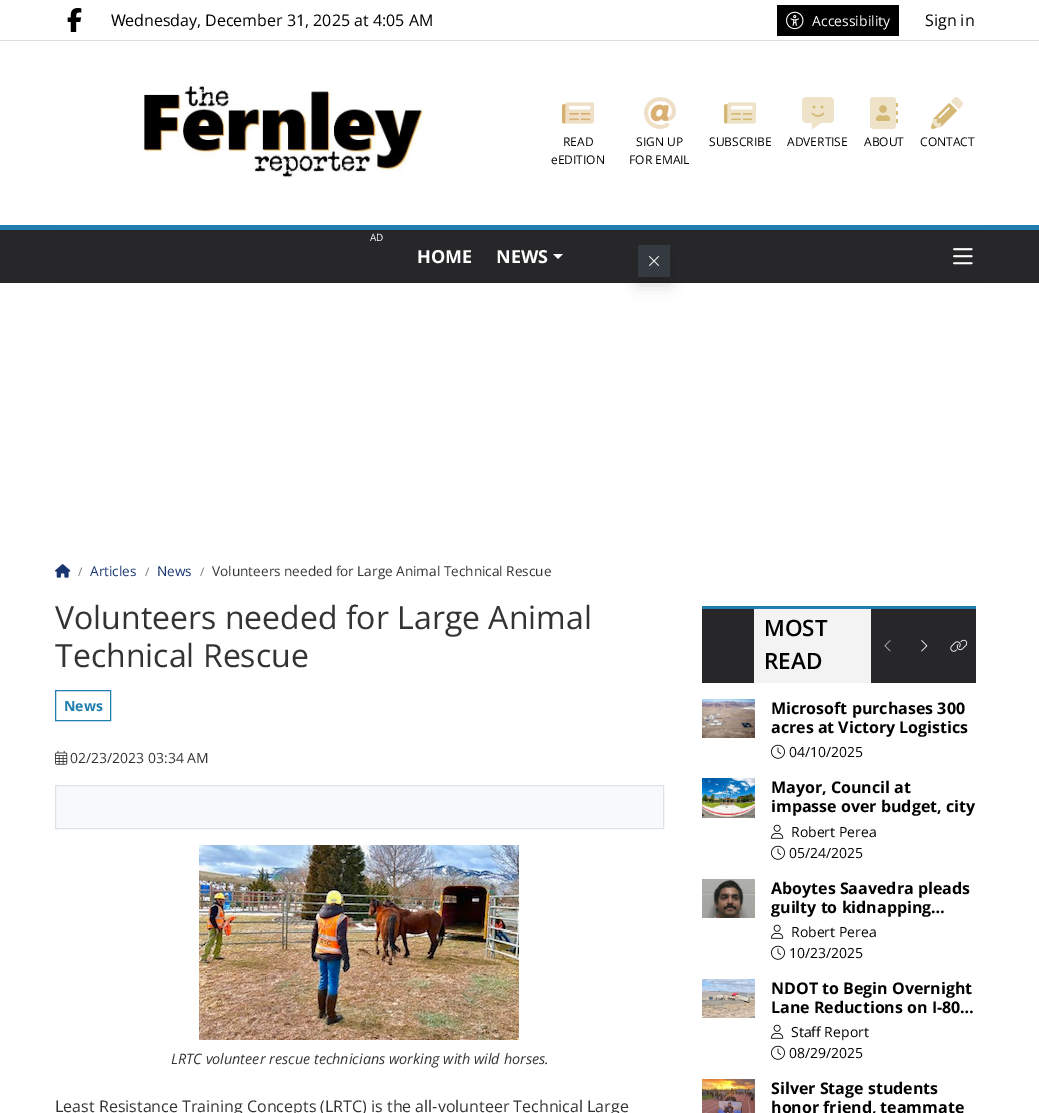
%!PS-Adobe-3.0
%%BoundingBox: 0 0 1039 1113
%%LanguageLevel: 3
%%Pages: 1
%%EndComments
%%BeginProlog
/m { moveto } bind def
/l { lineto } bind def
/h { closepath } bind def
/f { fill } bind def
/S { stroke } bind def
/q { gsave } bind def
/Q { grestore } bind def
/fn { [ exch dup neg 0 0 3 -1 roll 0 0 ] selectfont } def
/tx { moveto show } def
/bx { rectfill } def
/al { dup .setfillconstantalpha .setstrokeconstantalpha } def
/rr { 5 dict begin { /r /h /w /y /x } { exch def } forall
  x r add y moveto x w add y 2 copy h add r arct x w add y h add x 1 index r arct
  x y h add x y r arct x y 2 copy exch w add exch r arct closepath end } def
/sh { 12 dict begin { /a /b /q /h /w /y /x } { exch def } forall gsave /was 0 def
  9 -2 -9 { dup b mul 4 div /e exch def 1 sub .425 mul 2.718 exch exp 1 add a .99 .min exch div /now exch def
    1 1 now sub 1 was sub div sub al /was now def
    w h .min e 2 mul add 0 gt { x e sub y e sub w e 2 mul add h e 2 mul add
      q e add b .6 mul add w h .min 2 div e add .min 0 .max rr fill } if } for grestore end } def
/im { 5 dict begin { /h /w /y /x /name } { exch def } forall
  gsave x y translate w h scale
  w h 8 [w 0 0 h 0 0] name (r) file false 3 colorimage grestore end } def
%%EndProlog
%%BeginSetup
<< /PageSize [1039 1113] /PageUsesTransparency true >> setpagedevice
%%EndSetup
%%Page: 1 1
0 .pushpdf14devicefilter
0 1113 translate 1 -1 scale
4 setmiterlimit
1 setgray
0 0 1039 1113 bx
0.867 setgray
0 40 1039 1 bx
(image0.raw) 67 8 15 24 im
/NotoSans-Regular 16 fn
0 setgray
(W) 111 26 tx
/OpenSans-Regular 16 fn
(ednesday, December 31, 2025 at 4:05 AM) 125 26 tx
777 5 122 31 bx
(image1.raw) 786 11 18 19 im
/OpenSans-Regular 14 fn
1 setgray
(Accessibility) 812 26 tx
/OpenSans-Regular 16 fn
0 setgray
(Sign in) 925 26 tx
(image2.raw) 141 85 283 93 im
(image3.raw) 562 102 32 22 im
/OpenSans-Regular 12 fn
(READ) 563 146 tx
(eEDITION) 551 164 tx
(image4.raw) 644 97 32 32 im
(SIGN UP) 636 146 tx
(FOR EMAIL) 629 164 tx
(image5.raw) 724 102 32 22 im
(SUBSCRIBE) 709 146 tx
(image6.raw) 802 97 32 32 im
(ADVERTISE) 787 146 tx
(image7.raw) 870 97 28 32 im
(ABOUT) 864 146 tx
(image8.raw) 931 97 32 32 im
(CONTACT) 920 146 tx
0.153 0.153 0.165 setrgbcolor
0 230 1039 53 bx
0.125 0.49 0.686 setrgbcolor
0 225 1039 5 bx
0.133 0.133 0.141 setrgbcolor
55 230 930 1 bx
55 282 930 1 bx
/OpenSans-Bold 18 fn
1 setgray
(HOME) 417 263 tx
(NEWS) 496 263 tx
553 254 m 563 254 l 558 259 l h f
(image9.raw) 953 248 20 17 im
(image10.raw) 55 564 16 14 im
/OpenSans-Regular 12 fn
0.424 0.459 0.49 setrgbcolor
(/) 78 576 tx
/OpenSans-Regular 13.6 fn
0.098 0.208 0.439 setrgbcolor
(Articles) 90 576 tx
/OpenSans-Regular 12 fn
0.424 0.459 0.49 setrgbcolor
(/) 145 576 tx
/OpenSans-Regular 13.6 fn
0.098 0.208 0.439 setrgbcolor
(News) 157 576 tx
/OpenSans-Regular 12 fn
0.424 0.459 0.49 setrgbcolor
(/) 200 576 tx
/OpenSans-Regular 13.6 fn
0.2 setgray
(Volunteers needed for Large Animal Technical Rescue) 212 576 tx
/OpenSans-Regular 32 fn
(Volunteers needed for Large Animal) 55 629 tx
(Technical Rescue) 55 667 tx
0.125 0.49 0.686 setrgbcolor
55.5 690.5 55 30 rectstroke
/OpenSans-Bold 14 fn
(News) 64 711 tx
(image11.raw) 55 750 13 15 im
/OpenSans-Regular 14 fn
0.2 setgray
(02/23/2023 03:34 AM) 70 763 tx
0.973 0.976 0.98 setrgbcolor
55.5 785.5 m 663.5 785.5 l 663.5 828.5 l 55.5 828.5 l h q f Q
0.871 0.886 0.902 setrgbcolor
S
(image12.raw) 199 845 320 195 im
/OpenSans-Italic 14.4 fn
0.2 setgray
(LRTC volunteer rescue technicians working with wild horses.) 171 1064 tx
/OpenSans-Regular 16 fn
(Least Resistance Training Concepts \(LRTC\) is the all-volunteer Technical Large) 55 1112 tx
0.153 0.153 0.165 setrgbcolor
702 609 274 74 bx
0.125 0.49 0.686 setrgbcolor
702 606 274 3 bx
0.953 setgray
754 609 117 74 bx
/OpenSans-SemiBold 22.5 fn
0 setgray
(MOST) 764 636 tx
(READ) 764 669 tx
(image13.raw) 884 640 7 12 im
(image14.raw) 921 640 7 12 im
(image15.raw) 950 639 18 13 im
(image16.raw) 702 699 53 39 im
/OpenSans-Bold 16 fn
(Microsoft purchases 300) 771 714 tx
(acres at Victory Logistics) 771 733 tx
(image17.raw) 771 744 14 15 im
/OpenSans-Regular 14 fn
(04/10/2025) 789 757 tx
(image18.raw) 702 778 53 40 im
/OpenSans-Bold 16 fn
(Mayor, Council at) 771 793 tx
(impasse over budget, city) 771 812 tx
(image19.raw) 771 824 13 15 im
/OpenSans-Regular 14 fn
(Robert Perea) 791 837 tx
(image17.raw) 771 845 14 15 im
(05/24/2025) 789 858 tx
(image20.raw) 702 879 53 39 im
/OpenSans-Bold 16 fn
(Aboytes Saavedra pleads) 771 894 tx
(guilty to kidnapping…) 771 913 tx
(image19.raw) 771 924 13 15 im
/OpenSans-Regular 14 fn
(Robert Perea) 791 937 tx
(image17.raw) 771 945 14 15 im
(10/23/2025) 789 958 tx
(image21.raw) 702 979 53 39 im
/OpenSans-Bold 16 fn
(NDOT to Begin Overnight) 771 994 tx
(Lane Reductions on I-80…) 771 1013 tx
(image19.raw) 771 1024 13 15 im
/OpenSans-Regular 14 fn
(Staff Report) 791 1037 tx
(image17.raw) 771 1045 14 15 im
(08/29/2025) 789 1058 tx
(image22.raw) 702 1079 53 34 im
/OpenSans-Bold 16 fn
(Silver Stage students) 771 1094 tx
(honor friend, teammate) 771 1113 tx
/OpenSans-Regular 10 fn
1 setgray
(AD) 370 241 tx
0 setgray
638 253 32 32 0 8 0.15 sh
0.204 0.227 0.251 setrgbcolor
638 245 32 32 bx
(image23.raw) 649 256 10 10 im
.poppdf14devicefilter showpage
%%EOF
